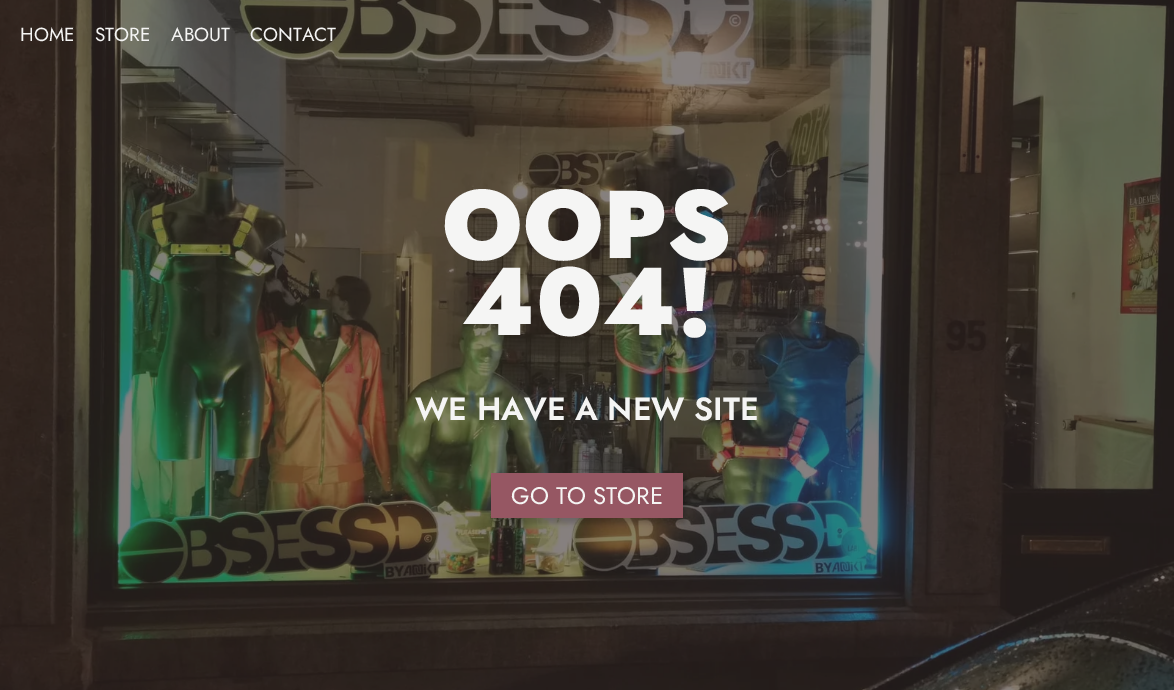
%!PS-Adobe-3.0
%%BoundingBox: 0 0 1174 690
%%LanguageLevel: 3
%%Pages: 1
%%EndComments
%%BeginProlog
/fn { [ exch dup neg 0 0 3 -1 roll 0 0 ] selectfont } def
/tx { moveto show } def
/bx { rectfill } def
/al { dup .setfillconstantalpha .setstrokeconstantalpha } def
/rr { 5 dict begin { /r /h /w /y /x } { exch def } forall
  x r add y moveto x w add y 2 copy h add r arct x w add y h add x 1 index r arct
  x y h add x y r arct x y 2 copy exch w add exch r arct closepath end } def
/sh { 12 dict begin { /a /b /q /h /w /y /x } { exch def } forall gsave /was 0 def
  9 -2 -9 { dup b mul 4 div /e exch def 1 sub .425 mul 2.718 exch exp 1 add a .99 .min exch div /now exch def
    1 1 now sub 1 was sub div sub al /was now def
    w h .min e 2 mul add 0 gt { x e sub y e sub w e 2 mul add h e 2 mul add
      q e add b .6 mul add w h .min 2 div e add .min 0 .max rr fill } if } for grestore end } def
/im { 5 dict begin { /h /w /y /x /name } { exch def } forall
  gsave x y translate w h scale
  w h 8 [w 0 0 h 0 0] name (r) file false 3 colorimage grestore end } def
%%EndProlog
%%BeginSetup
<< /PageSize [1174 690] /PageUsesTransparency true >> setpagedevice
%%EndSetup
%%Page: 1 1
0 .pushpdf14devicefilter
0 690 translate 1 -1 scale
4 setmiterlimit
1 setgray
0 0 1174 690 bx
(image0.raw) 0 0 1174 690 im
/Jost-Regular 19 fn
0.961 0.961 0.957 setrgbcolor
(HOME) 20 41 tx
(STORE) 95 41 tx
(ABOUT) 171 41 tx
(CONTACT) 250 41 tx
/Jost-Black 96 fn
(OOPS) 442 258 tx
(404!) 462 335 tx
/Jost-SemiBold 32 fn
(WE HAVE A NEW SITE) 415 420 tx
0 setgray
493 478 192 45 0 2.5 0.2 sh
0.588 0.341 0.388 setrgbcolor
491 473 192 45 bx
/Jost-Regular 24 fn
0.961 0.961 0.957 setrgbcolor
(GO TO STORE) 511 504 tx
.poppdf14devicefilter showpage
%%EOF
